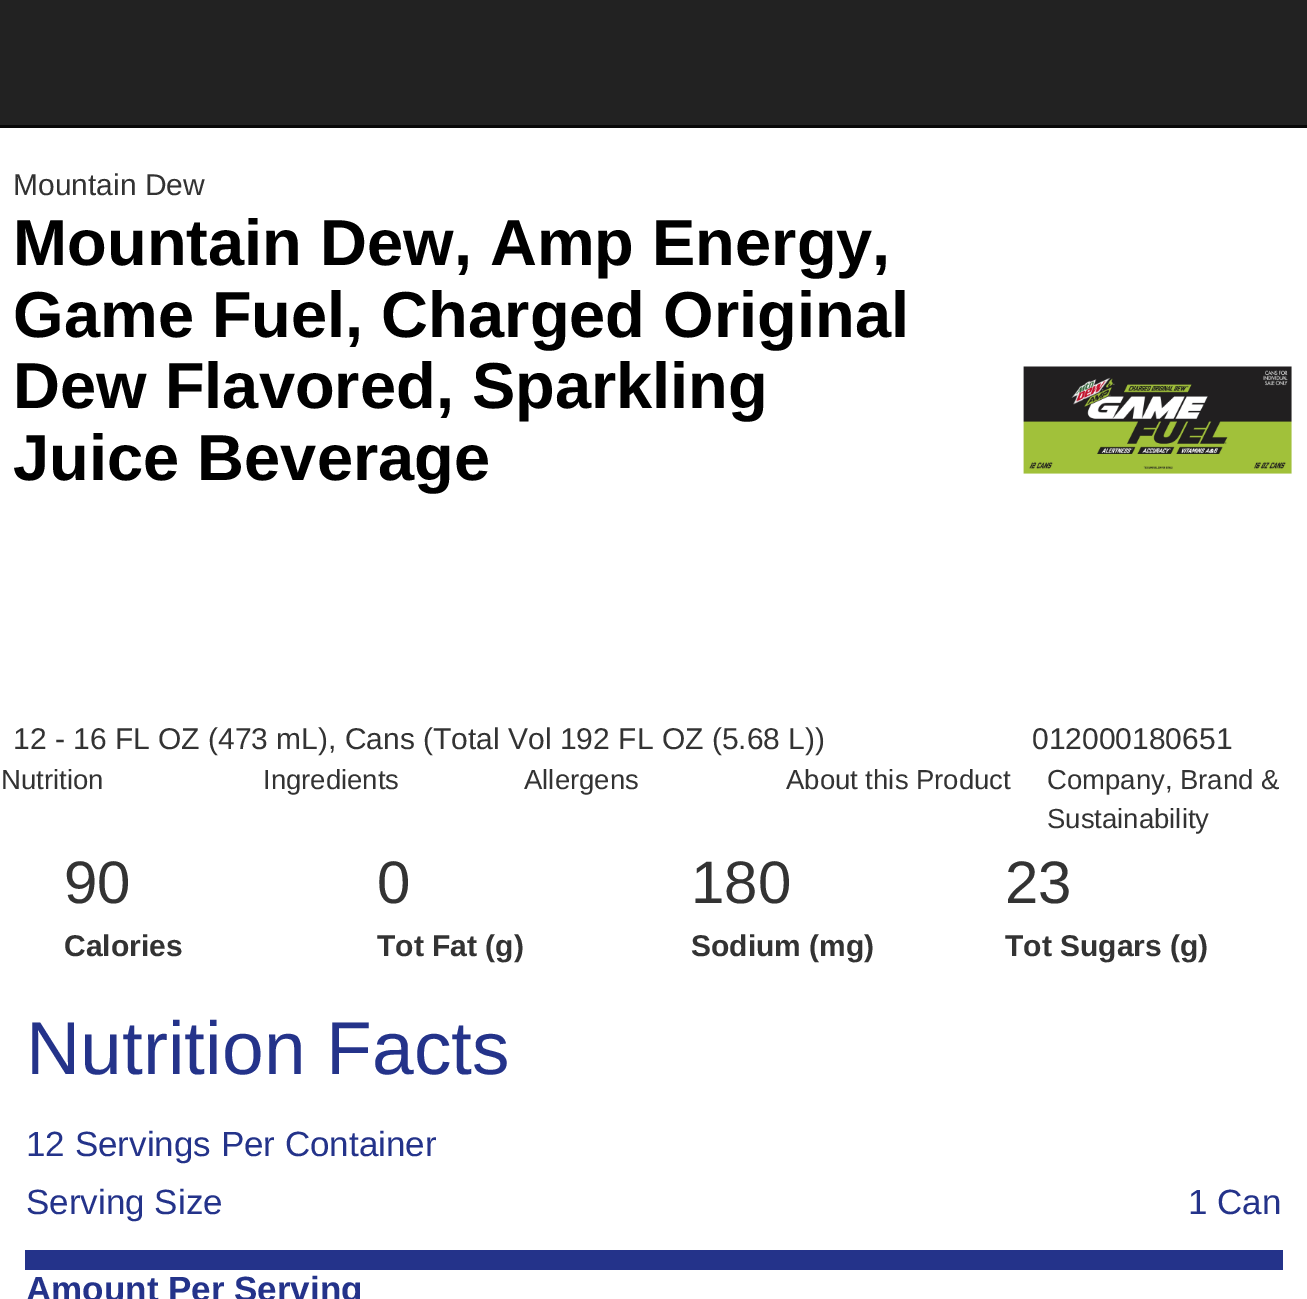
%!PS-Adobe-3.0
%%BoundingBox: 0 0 1307 1299
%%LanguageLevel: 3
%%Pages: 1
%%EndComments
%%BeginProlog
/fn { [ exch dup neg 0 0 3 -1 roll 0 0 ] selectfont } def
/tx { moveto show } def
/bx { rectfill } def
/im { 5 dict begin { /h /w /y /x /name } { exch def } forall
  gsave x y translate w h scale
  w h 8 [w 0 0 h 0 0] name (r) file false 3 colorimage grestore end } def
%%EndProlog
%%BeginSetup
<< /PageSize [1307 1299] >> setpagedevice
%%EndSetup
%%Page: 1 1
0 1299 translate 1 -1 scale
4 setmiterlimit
1 setgray
0 0 1307 1299 bx
0.133 setgray
0 0 1307 125 bx
0.031 setgray
0 125 1307 3 bx
/LiberationSans-Regular 30 fn
0.2 setgray
(Mountain Dew) 13 195 tx
/LiberationSans-Bold 65 fn
0 setgray
(Mountain Dew, Amp Energy,) 13 265 tx
(Game Fuel, Charged Original) 13 337 tx
(Dew Flavored, Sparkling) 13 408 tx
(Juice Beverage) 13 480 tx
/LiberationSans-Regular 30 fn
0.2 setgray
(12 - 16 FL OZ \(473 mL\), Cans \(Total Vol 192 FL OZ \(5.68 L\)\)) 13 749 tx
(012000180651) 1032 749 tx
(image0.raw) 1023 366 269 108 im
/LiberationSans-Regular 27.5 fn
(Nutrition) 1 789 tx
(Ingredients) 263 789 tx
(Allergens) 524 789 tx
(About this Product) 786 789 tx
(Company, Brand &) 1047 789 tx
(Sustainability) 1047 828 tx
/LiberationSans-Regular 60 fn
(90) 64 903 tx
/LiberationSans-Bold 30 fn
(Calories) 64 956 tx
/LiberationSans-Regular 60 fn
(0) 377 903 tx
/LiberationSans-Bold 30 fn
(Tot Fat \(g\)) 377 956 tx
/LiberationSans-Regular 60 fn
(180) 691 903 tx
/LiberationSans-Bold 30 fn
(Sodium \(mg\)) 691 956 tx
/LiberationSans-Regular 60 fn
(23) 1005 903 tx
/LiberationSans-Bold 30 fn
(Tot Sugars \(g\)) 1005 956 tx
0.141 0.2 0.541 setrgbcolor
25 1250 1258 20 bx
/LiberationSans-Regular 75 fn
(Nutrition Facts) 26 1074 tx
/LiberationSans-Regular 35 fn
(12 Servings Per Container) 26 1156 tx
(Serving Size) 26 1214 tx
(1 Can) 1188 1214 tx
/LiberationSans-Bold 35 fn
(Amount Per Serving) 26 1301 tx
showpage
%%EOF
